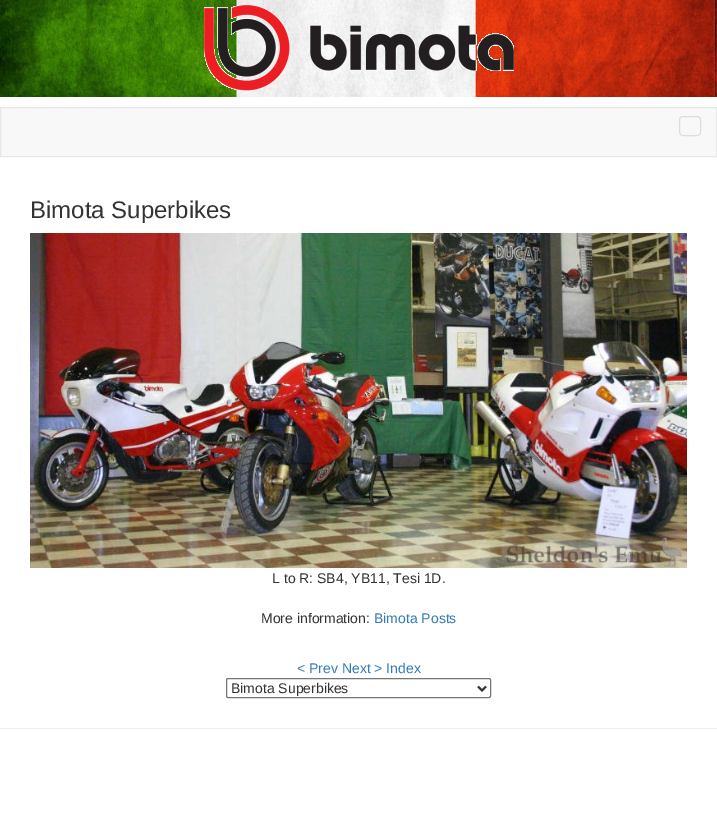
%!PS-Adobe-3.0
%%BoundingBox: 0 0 717 827
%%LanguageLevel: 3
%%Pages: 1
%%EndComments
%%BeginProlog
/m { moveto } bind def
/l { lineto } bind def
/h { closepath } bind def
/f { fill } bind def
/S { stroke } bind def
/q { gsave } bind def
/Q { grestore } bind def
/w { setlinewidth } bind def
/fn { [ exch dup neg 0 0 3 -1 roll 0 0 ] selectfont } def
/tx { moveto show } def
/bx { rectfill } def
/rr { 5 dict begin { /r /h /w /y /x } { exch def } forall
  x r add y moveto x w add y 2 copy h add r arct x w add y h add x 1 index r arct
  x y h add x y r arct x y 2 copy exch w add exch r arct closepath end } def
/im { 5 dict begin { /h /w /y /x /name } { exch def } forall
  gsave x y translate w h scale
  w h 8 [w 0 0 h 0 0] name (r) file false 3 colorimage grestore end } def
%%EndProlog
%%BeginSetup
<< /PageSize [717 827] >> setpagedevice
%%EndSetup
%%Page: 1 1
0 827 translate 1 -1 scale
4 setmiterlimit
1 setgray
0 0 717 827 bx
(image0.raw) 0 0 717 97 im
(image1.raw) 204 5 310 86 im
0.973 setgray
0.5 107.5 m 716.5 107.5 l 716.5 156.5 l 0.5 156.5 l h q f Q
0.906 setgray
S
0.867 setgray
679.5 116.5 21 19 3.5 rr S
/LiberationSans-Regular 24 fn
0.2 setgray
(Bimota Superbikes) 30 218 tx
(image2.raw) 30 233 657 335 im
/LiberationSans-Regular 14 fn
(L to R: SB4, YB11, Tesi 1D.) 272 583 tx
(More information:) 261 623 tx
0.2 0.478 0.718 setrgbcolor
(Bimota Posts) 374 623 tx
(< Prev Next > Index) 297 673 tx
0.463 setgray
226.5 678.5 264 19 1.5 rr S
0.2 setgray
2 w
478 686.5 m 482 690.5 l 486 686.5 l S
(Bimota Superbikes) 231 693 tx
0.933 setgray
0 728 717 1 bx
showpage
%%EOF
